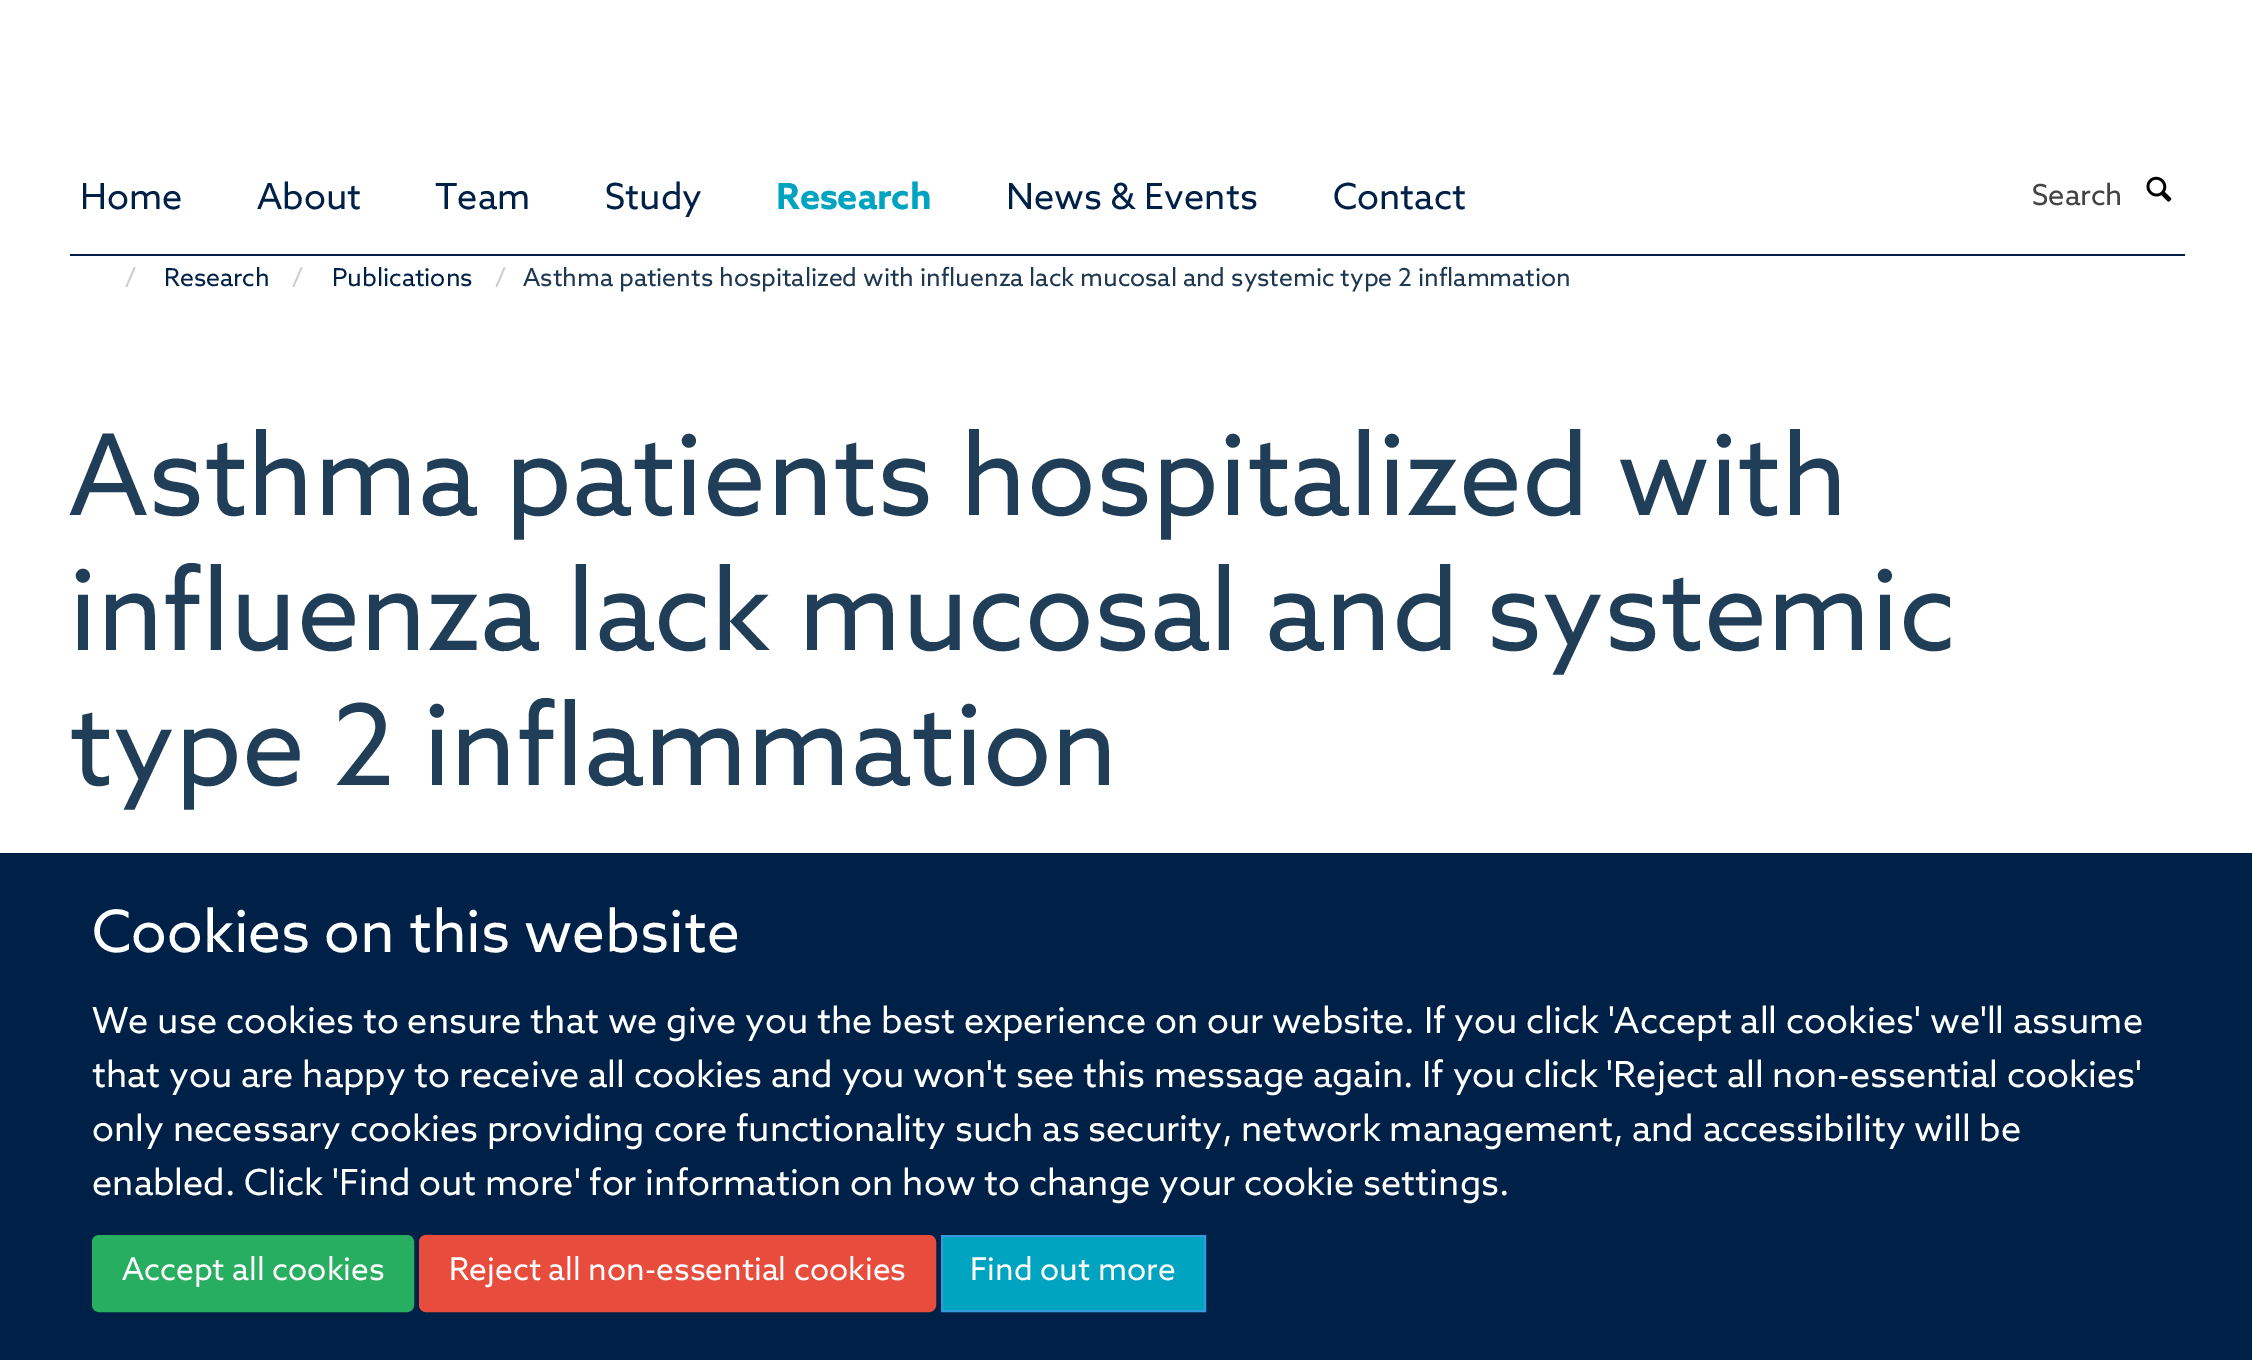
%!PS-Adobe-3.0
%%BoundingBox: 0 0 2252 1360
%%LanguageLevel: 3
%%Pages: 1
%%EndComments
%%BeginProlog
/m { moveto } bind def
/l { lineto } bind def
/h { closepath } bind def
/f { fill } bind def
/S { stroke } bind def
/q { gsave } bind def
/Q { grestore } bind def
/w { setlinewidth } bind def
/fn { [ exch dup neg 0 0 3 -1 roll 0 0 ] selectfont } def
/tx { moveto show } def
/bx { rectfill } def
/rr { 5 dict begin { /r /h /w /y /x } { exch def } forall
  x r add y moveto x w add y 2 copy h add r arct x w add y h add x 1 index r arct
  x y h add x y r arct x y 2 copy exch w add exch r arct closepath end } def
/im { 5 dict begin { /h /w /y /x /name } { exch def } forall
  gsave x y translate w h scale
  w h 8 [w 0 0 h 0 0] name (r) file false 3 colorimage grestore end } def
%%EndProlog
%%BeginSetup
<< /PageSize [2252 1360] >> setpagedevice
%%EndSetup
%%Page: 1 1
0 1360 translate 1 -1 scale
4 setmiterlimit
1 setgray
0 0 2252 1360 bx
0 0.129 0.278 setrgbcolor
70 254 2115 2 bx
/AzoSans-Regular 36 fn
(Home) 80 209 tx
(About) 257 209 tx
(Team) 435 209 tx
(Study) 605 209 tx
/AzoSans-Bold 36 fn
0 0.639 0.753 setrgbcolor
(Research) 776 209 tx
/AzoSans-Regular 36 fn
0 0.129 0.278 setrgbcolor
(News & Events) 1006 209 tx
(Contact) 1333 209 tx
/AzoSans-Regular 29 fn
0.267 setgray
(Search) 2032 205 tx
(image0.raw) 2146 176 26 26 im
/AzoSans-Regular 24.75 fn
0.8 setgray
(/) 125 286 tx
0 0.129 0.278 setrgbcolor
(Research) 164 286 tx
0.8 setgray
(/) 292 286 tx
0 0.129 0.278 setrgbcolor
(Publications) 332 286 tx
0.8 setgray
(/) 495 286 tx
0.114 0.22 0.314 setrgbcolor
523 286 m -0.1 0 32 (Asthma patients hospitalized with influenza lack mucosal and systemic type 2 inflammation) widthshow
/AzoSans-Regular 112.5 fn
0.125 0.243 0.345 setrgbcolor
(Asthma patients hospitalized with) 69 515 tx
(influenza lack mucosal and systemic) 69 650 tx
(type 2 inflammation) 69 785 tx
0 0.129 0.278 setrgbcolor
0 853 2252 507 bx
/AzoSans-Regular 58.5 fn
1 setgray
(Cookies on this website) 92 952 tx
/AzoSans-Regular 36 fn
(We use cookies to ensure that we give you the best experience on our website. If you click 'Accept all cookies' we'll assume) 92 1033 tx
(that you are happy to receive all cookies and you won't see this message again. If you click 'Reject all non-essential cookies') 92 1087 tx
(only necessary cookies providing core functionality such as security, network management, and accessibility will be) 92 1141 tx
(enabled. Click 'Find out more' for information on how to change your cookie settings.) 92 1195 tx
0.153 0.682 0.376 setrgbcolor
93 1236 320 75 6 rr q f Q
2 w
S
/AzoSans-Regular 31.5 fn
1 setgray
(Accept all cookies) 122 1280 tx
0.906 0.298 0.235 setrgbcolor
420 1236 515 75 6 rr q f Q
S
1 setgray
(Reject all non-essential cookies) 449 1280 tx
0 0.639 0.753 setrgbcolor
942 1236 m 1205 1236 l 1205 1311 l 942 1311 l h q f Q
0.204 0.596 0.859 setrgbcolor
S
1 setgray
(Find out more) 970 1280 tx
showpage
%%EOF
